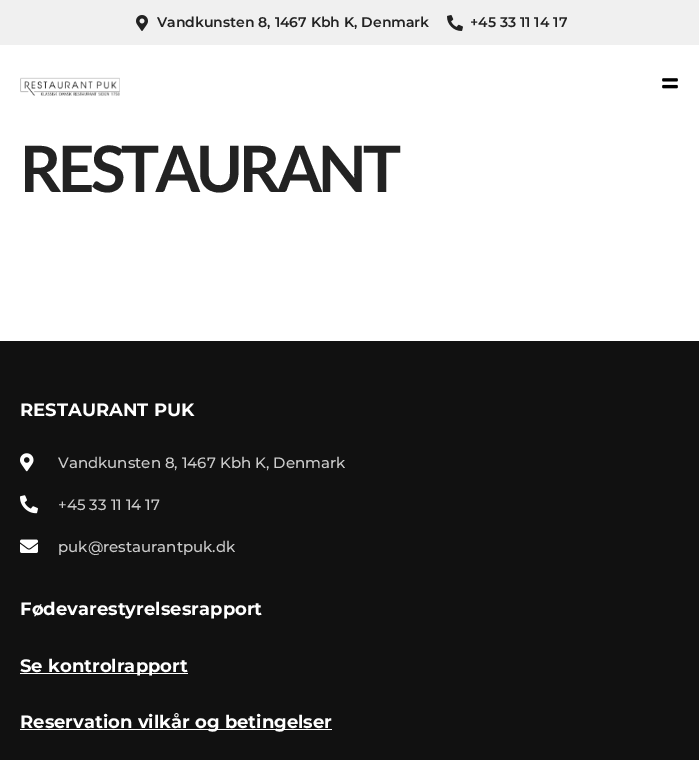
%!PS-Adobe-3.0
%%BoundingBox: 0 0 699 760
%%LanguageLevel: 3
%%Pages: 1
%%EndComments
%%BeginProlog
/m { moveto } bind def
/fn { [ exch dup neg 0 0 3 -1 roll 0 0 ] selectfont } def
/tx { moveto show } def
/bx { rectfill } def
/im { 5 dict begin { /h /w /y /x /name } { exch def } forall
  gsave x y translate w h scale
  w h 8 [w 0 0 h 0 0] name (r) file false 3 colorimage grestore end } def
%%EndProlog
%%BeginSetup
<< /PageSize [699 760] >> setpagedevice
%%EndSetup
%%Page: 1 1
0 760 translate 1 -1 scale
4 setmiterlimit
1 setgray
0 0 699 760 bx
0.941 setgray
0 0 699 45 bx
(image0.raw) 136 15 12 16 im
/Montserrat-SemiBold 14 fn
0.133 setgray
(Vandkunsten 8, 1467 Kbh K, Denmark) 157 27 tx
(image1.raw) 447 15 16 16 im
(+45 33 11 14 17) 470 27 tx
(image2.raw) 20 77 100 19 im
(image3.raw) 662 78 16 11 im
/Lato-Bold 64 fn
20 192 m -4 0 (RESTAURANT) ashow
0.067 setgray
0 341 699 419 bx
/Montserrat-Bold 18 fn
1 setgray
(RESTAURANT PUK) 20 416 tx
(image4.raw) 20 453 14 19 im
/Montserrat-Medium 15 fn
0.8 setgray
(Vandkunsten 8, 1467 Kbh K, Denmark) 58 468 tx
(image5.raw) 20 495 18 19 im
(+45 33 11 14 17) 58 510 tx
(image6.raw) 20 539 18 14 im
(puk@restaurantpuk.dk) 58 552 tx
/Montserrat-Bold 18 fn
1 setgray
(Fødevarestyrelsesrapport) 20 615 tx
20 673 168 1 bx
(Se kontrolrapport) 20 672 tx
20 729 312 1 bx
(Reservation vilkår og betingelser) 20 728 tx
showpage
%%EOF
